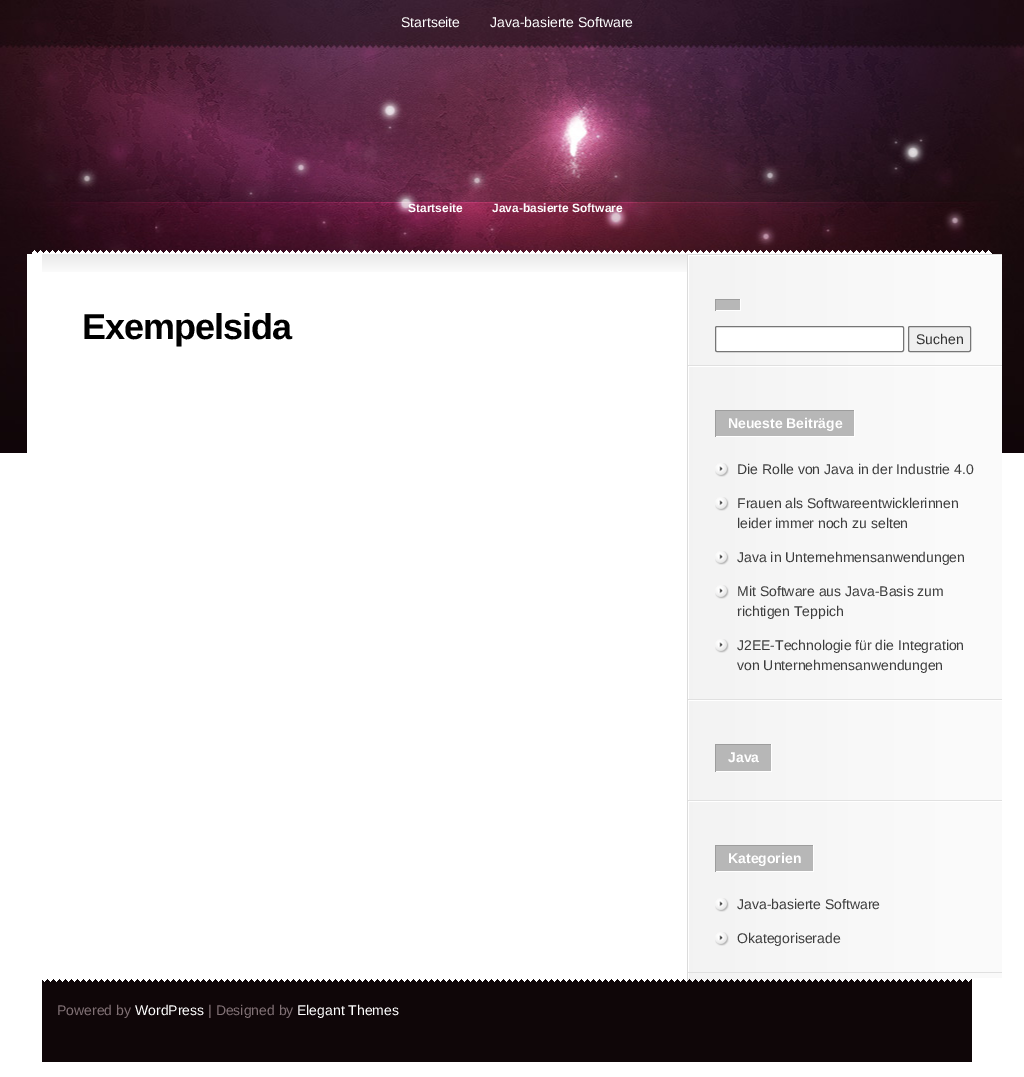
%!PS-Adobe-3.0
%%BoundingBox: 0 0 1024 1077
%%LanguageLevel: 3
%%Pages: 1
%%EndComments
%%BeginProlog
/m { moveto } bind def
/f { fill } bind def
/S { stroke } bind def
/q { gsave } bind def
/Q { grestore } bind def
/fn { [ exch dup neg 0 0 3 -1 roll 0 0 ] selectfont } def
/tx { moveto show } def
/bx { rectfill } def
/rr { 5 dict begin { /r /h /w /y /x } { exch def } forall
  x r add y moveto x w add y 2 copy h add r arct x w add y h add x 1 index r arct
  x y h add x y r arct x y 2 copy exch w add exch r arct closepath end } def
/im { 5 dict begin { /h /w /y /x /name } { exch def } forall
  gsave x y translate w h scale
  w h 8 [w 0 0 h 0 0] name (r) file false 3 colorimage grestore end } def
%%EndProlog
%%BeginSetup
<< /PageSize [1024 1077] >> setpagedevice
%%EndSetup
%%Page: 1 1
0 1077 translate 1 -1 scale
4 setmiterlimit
1 setgray
0 0 1024 1077 bx
(image0.raw) 0 0 1024 453 im
/LiberationSans-Regular 14 fn
(Startseite) 401 27 tx
(Java-basierte Software) 490 27 tx
/LiberationSans-Bold 12 fn
(Startseite) 408 212 tx
(Java-basierte Software) 492 212 tx
(image1.raw) 32 250 960 4 im
27 254 970 199 bx
(image2.raw) 687 254 315 724 im
(image3.raw) 42 254 645 18 im
/LiberationSans-Bold 36 fn
0 setgray
82 339 m -1 0 (Exempelsida) ashow
0.859 setgray
688 254 314 1 bx
1 setgray
688 255 314 1 bx
0.878 setgray
688 365 314 1 bx
0.718 setgray
716 300 24 10 bx
0.616 setgray
715 299 26 1 bx
1 setgray
740 299 1 12 bx
715 310 26 1 bx
0.616 setgray
715 299 1 12 bx
1 setgray
715.5 326.5 188 25 1.5 rr q f Q
0.463 setgray
S
0.937 setgray
908.5 326.5 62 25 1.5 rr q f Q
0.463 setgray
S
/LiberationSans-Regular 14 fn
0.2 setgray
(Suchen) 916 344 tx
1 setgray
688 366 314 1 bx
0.878 setgray
688 699 314 1 bx
0.718 setgray
716 411 138 25 bx
0.616 setgray
715 410 140 1 bx
1 setgray
854 410 1 27 bx
715 436 140 1 bx
0.616 setgray
715 410 1 27 bx
/LiberationSans-Bold 14 fn
1 setgray
(Neueste Beiträge) 728 428 tx
(image4.raw) 715 463 14 14 im
/LiberationSans-Regular 14 fn
0.239 setgray
(Die Rolle von Java in der Industrie 4.0) 737 474 tx
(image4.raw) 715 497 14 14 im
(Frauen als Softwareentwicklerinnen) 737 508 tx
(leider immer noch zu selten) 737 528 tx
(image4.raw) 715 551 14 14 im
(Java in Unternehmensanwendungen) 737 562 tx
(image4.raw) 715 585 14 14 im
(Mit Software aus Java-Basis zum) 737 596 tx
(richtigen Teppich) 737 616 tx
(image4.raw) 715 639 14 14 im
(J2EE-Technologie für die Integration) 737 650 tx
(von Unternehmensanwendungen) 737 670 tx
1 setgray
688 700 314 1 bx
0.878 setgray
688 800 314 1 bx
0.718 setgray
716 745 55 26 bx
0.616 setgray
715 744 57 1 bx
1 setgray
771 744 1 28 bx
715 771 57 1 bx
0.616 setgray
715 744 1 28 bx
/LiberationSans-Bold 14 fn
1 setgray
(Java) 728 762 tx
688 801 314 1 bx
0.878 setgray
688 972 314 1 bx
0.718 setgray
716 846 97 25 bx
0.616 setgray
715 845 99 1 bx
1 setgray
813 845 1 27 bx
715 871 99 1 bx
0.616 setgray
715 845 1 27 bx
1 setgray
(Kategorien) 728 863 tx
(image4.raw) 715 898 14 14 im
/LiberationSans-Regular 14 fn
0.239 setgray
(Java-basierte Software) 737 909 tx
(image4.raw) 715 932 14 14 im
(Okategoriserade) 737 943 tx
0.059 0.024 0.031 setrgbcolor
42 979 930 83 bx
(image5.raw) 42 978 930 4 im
0.506 0.443 0.459 setrgbcolor
(Powered by) 57 1015 tx
1 setgray
(WordPress) 135 1015 tx
0.506 0.443 0.459 setrgbcolor
(| Designed by) 208 1015 tx
1 setgray
(Elegant Themes) 297 1015 tx
showpage
%%EOF
